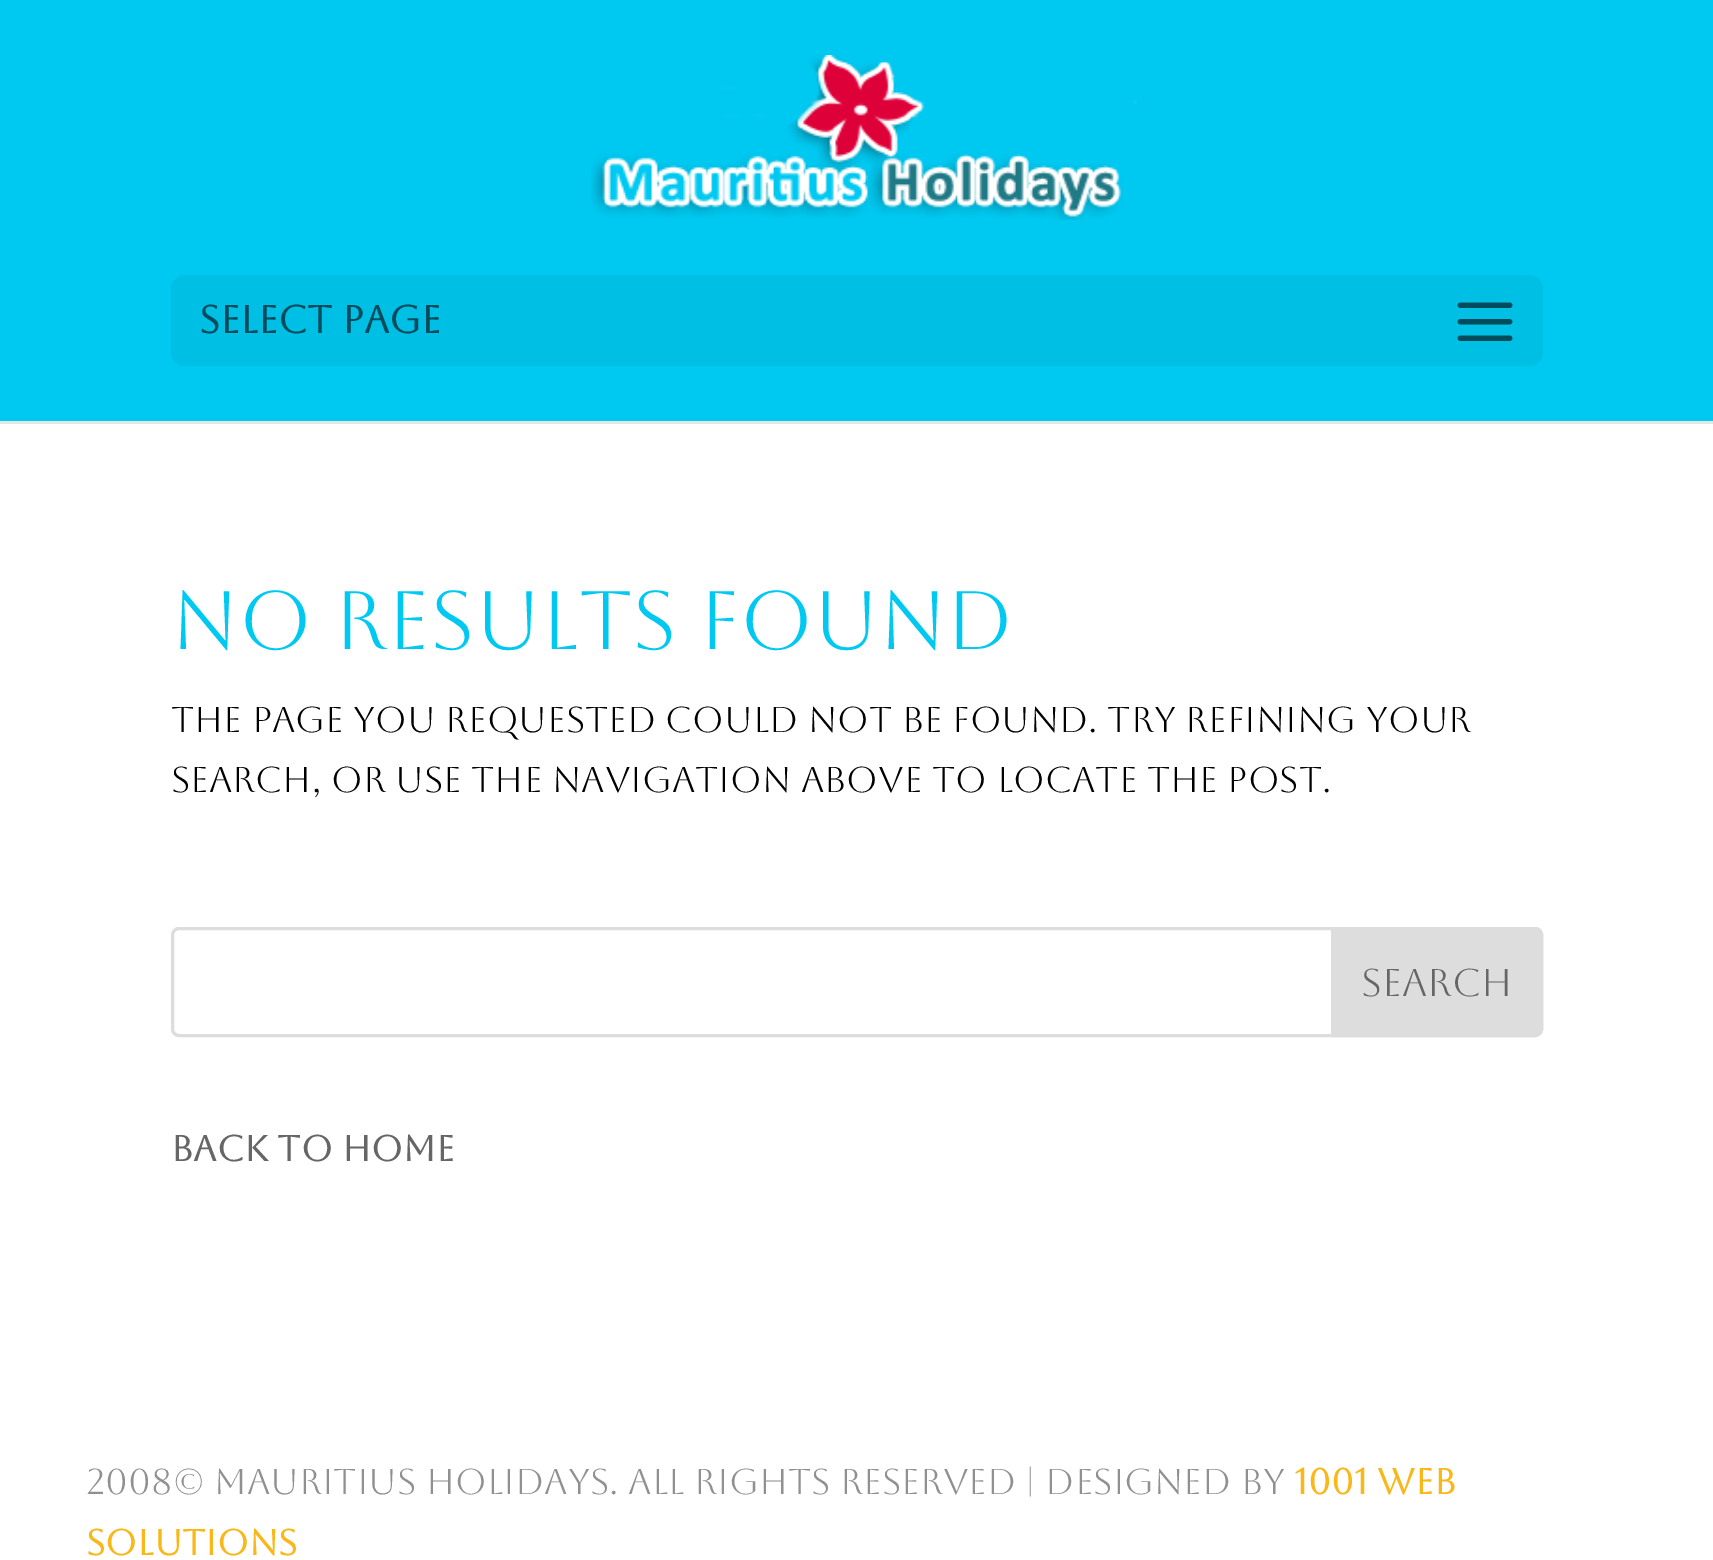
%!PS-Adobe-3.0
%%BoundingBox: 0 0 1713 1560
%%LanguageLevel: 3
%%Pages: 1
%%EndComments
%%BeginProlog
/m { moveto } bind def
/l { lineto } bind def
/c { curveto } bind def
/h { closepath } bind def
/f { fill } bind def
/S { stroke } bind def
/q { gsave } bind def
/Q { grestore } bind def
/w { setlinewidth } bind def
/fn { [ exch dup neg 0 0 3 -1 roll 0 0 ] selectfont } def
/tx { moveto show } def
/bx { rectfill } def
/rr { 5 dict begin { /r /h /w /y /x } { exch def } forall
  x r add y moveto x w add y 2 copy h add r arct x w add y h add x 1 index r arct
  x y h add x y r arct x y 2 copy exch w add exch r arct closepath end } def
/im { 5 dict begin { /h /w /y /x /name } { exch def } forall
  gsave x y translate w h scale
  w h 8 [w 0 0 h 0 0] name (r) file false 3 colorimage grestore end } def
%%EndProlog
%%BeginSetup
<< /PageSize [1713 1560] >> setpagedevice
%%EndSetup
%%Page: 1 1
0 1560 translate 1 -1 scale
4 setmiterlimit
1 setgray
0 0 1713 1560 bx
0.902 setgray
0 421 1713 3 bx
0 0.788 0.945 setrgbcolor
0 0 1713 421 bx
(image0.raw) 591 55 546 165 im
0 0.749 0.898 setrgbcolor
171 275 1372 91 14 rr f
/Aboreto-Bold 38.5 fn
0 0.298 0.361 setrgbcolor
(Select Page) 199 333 tx
(image1.raw) 1457 302 56 39 im
/Aboreto-Regular 82.5 fn
0 0.788 0.945 setrgbcolor
(No Results Found) 171 649 tx
/Aboreto-Regular 35.75 fn
0 setgray
(The page you requested could not be found. Try refining your) 171 732 tx
(search, or use the navigation above to locate the post.) 171 792 tx
0.867 setgray
3 w
172.5 928.5 1369 107 6.5 rr S
1332.5 928.5 m 1535 928.5 l 1538.5 928.5 1541.5 931.5 1541.5 935 c 1541.5 1029 l 1541.5 1032.5 1538.5 1035.5 1535 1035.5 c 1332.5 1035.5 l h q f Q
S
/Aboreto-Regular 38.5 fn
0.4 setgray
(Search) 1361 996 tx
/Aboreto-Bold 35.75 fn
(Back to Home) 171 1161 tx
/Aboreto-Regular 35.75 fn
0.569 0.561 0.561 setrgbcolor
(2008© Mauritius Holidays. All rights reserved | Designed by) 86 1494 tx
/Aboreto-Bold 35.75 fn
0.98 0.718 0.094 setrgbcolor
(1001 Web) 1294 1494 tx
(Solutions) 86 1555 tx
showpage
%%EOF
